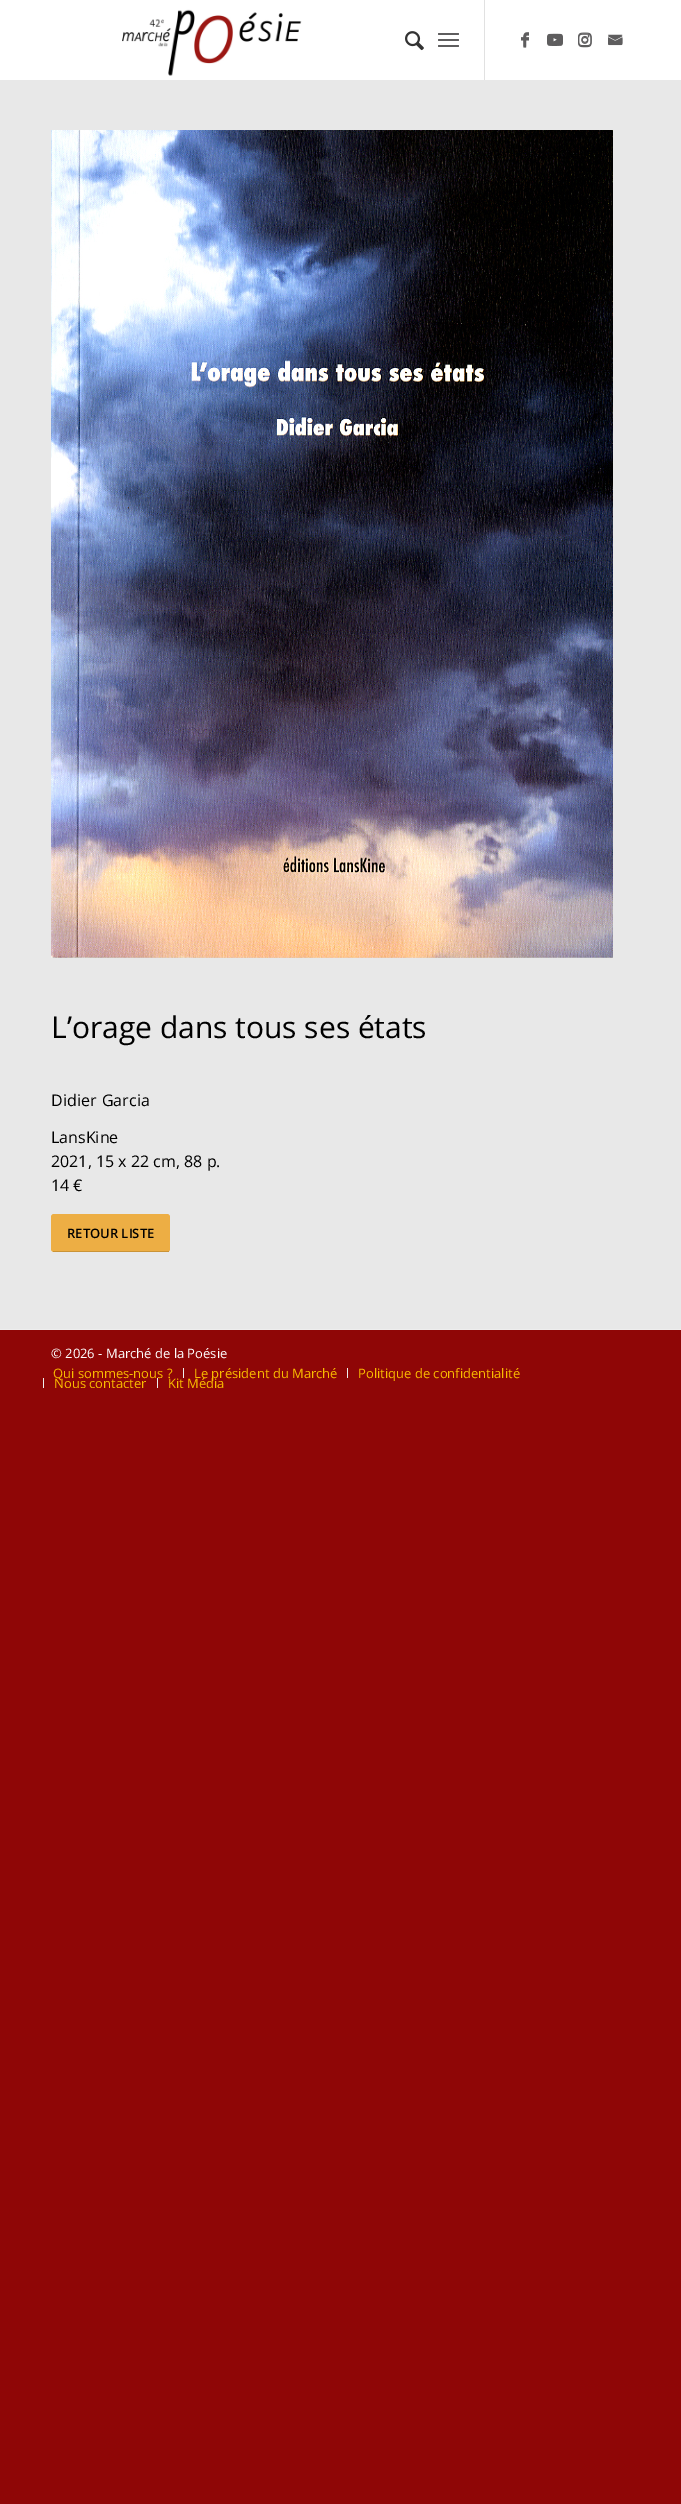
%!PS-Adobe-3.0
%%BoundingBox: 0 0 681 2504
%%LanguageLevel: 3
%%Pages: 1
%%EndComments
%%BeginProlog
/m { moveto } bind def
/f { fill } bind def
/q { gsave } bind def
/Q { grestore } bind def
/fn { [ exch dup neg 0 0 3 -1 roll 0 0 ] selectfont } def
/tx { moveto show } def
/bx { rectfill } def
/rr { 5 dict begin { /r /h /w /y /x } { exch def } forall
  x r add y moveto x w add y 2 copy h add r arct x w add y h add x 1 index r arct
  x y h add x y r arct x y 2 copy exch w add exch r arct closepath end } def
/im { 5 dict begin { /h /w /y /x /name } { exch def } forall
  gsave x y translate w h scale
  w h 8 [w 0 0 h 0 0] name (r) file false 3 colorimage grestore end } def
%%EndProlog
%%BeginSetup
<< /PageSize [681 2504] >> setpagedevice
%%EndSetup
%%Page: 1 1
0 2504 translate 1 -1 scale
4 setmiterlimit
0.561 0.024 0.024 setrgbcolor
0 0 681 2504 bx
1 setgray
0 0 681 80 bx
(image0.raw) 122 9 180 67 im
0.882 setgray
484 0 1 80 bx
(image1.raw) 405 31 19 20 im
0.369 0.365 0.369 setrgbcolor
438 39 21 2 1 rr f
438 33 21 2 1 rr f
438 45 21 2 1 rr f
(image2.raw) 521 33 8 15 im
(image3.raw) 547 35 16 11 im
(image4.raw) 578 33 14 15 im
(image5.raw) 608 35 15 11 im
(image6.raw) 521 32 8 15 im
(image7.raw) 547 33 16 12 im
(image8.raw) 578 32 14 14 im
(image9.raw) 608 34 15 10 im
0.91 setgray
0 80 681 1249 bx
(image10.raw) 51 130 562 828 im
/OpenSans-Regular 30 fn
0 setgray
(L’orage dans tous ses états) 51 1038 tx
/OpenSans-Regular 16 fn
51 1106 m 0.2 0 (Didier Garcia) ashow
(LansKine) 51 1143 tx
(2021, 15 x 22 cm, 88 p.) 51 1167 tx
(14 €) 51 1191 tx
0.929 0.682 0.267 setrgbcolor
51 1214 119 38 3 rr f
0.792 0.576 0.212 setrgbcolor
53 1251 116 1 bx
/OpenSans-SemiBold 13 fn
0 setgray
(RETOUR LISTE) 67 1238 tx
0.933 setgray
0 1329 681 1 bx
/OpenSans-Regular 13 fn
1 setgray
(© 2026 - Marché de la Poésie) 51 1358 tx
0.98 0.737 0 setrgbcolor
(Qui sommes-nous ?) 53 1378 tx
0.933 setgray
183 1368 1 10 bx
0.98 0.737 0 setrgbcolor
(Le président du Marché) 194 1378 tx
0.933 setgray
347 1368 1 10 bx
0.98 0.737 0 setrgbcolor
(Politique de confidentialité) 358 1378 tx
0.933 setgray
43 1378 1 10 bx
q
36 1362 579 26 rectclip
0.98 0.737 0 setrgbcolor
(Nous contacter) 54 1388 tx
Q
157 1378 1 10 bx
q
36 1362 579 26 rectclip
0.98 0.737 0 setrgbcolor
(Kit Média) 168 1388 tx
Q
showpage
%%EOF
